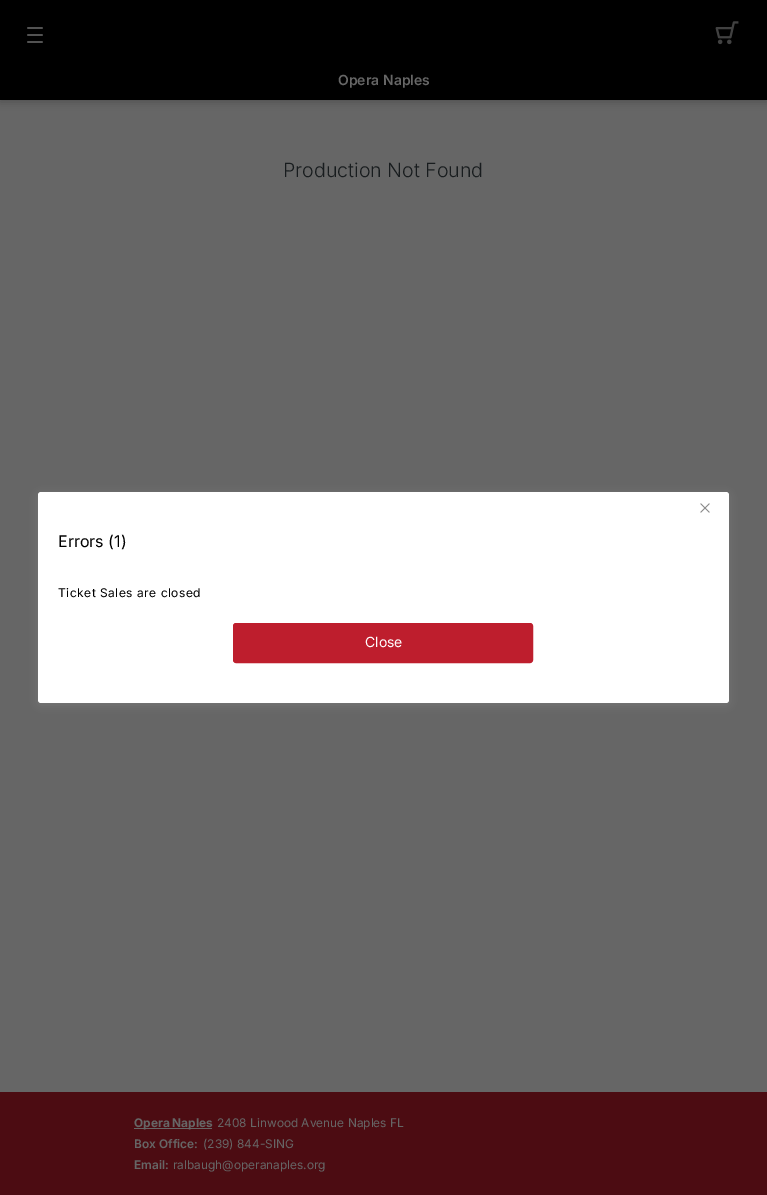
%!PS-Adobe-3.0
%%BoundingBox: 0 0 767 1195
%%LanguageLevel: 3
%%Pages: 1
%%EndComments
%%BeginProlog
/m { moveto } bind def
/f { fill } bind def
/S { stroke } bind def
/q { gsave } bind def
/Q { grestore } bind def
/fn { [ exch dup neg 0 0 3 -1 roll 0 0 ] selectfont } def
/tx { moveto show } def
/bx { rectfill } def
/al { dup .setfillconstantalpha .setstrokeconstantalpha } def
/rr { 5 dict begin { /r /h /w /y /x } { exch def } forall
  x r add y moveto x w add y 2 copy h add r arct x w add y h add x 1 index r arct
  x y h add x y r arct x y 2 copy exch w add exch r arct closepath end } def
/sh { 12 dict begin { /a /b /q /h /w /y /x } { exch def } forall gsave /was 0 def
  9 -2 -9 { dup b mul 4 div /e exch def 1 sub .425 mul 2.718 exch exp 1 add a .99 .min exch div /now exch def
    1 1 now sub 1 was sub div sub al /was now def
    w h .min e 2 mul add 0 gt { x e sub y e sub w e 2 mul add h e 2 mul add
      q e add b .6 mul add w h .min 2 div e add .min 0 .max rr fill } if } for grestore end } def
/im { 5 dict begin { /h /w /y /x /name } { exch def } forall
  gsave x y translate w h scale
  w h 8 [w 0 0 h 0 0] name (r) file false 3 colorimage grestore end } def
%%EndProlog
%%BeginSetup
<< /PageSize [767 1195] /PageUsesTransparency true >> setpagedevice
%%EndSetup
%%Page: 1 1
0 .pushpdf14devicefilter
0 1195 translate 1 -1 scale
4 setmiterlimit
0.4 setgray
0 0 767 1195 bx
0 setgray
0 2 767 100 0 4 0.2 sh
0 0 767 100 bx
(image0.raw) 27 27 16 16 im
(image1.raw) 715 21 24 24 im
/Inter-SemiBold 14 fn
0.4 setgray
(Opera Naples) 338 85 tx
/Inter-Light 19.6 fn
0.094 0.11 0.118 setrgbcolor
(Production Not Found) 283 177 tx
0.533 setgray
38 494 691 211 3 4 0.5 sh
1 setgray
38 492 691 211 3 rr f
(image2.raw) 700 503 10 10 im
/Inter-Regular 16 fn
0 setgray
(Errors \(1\)) 58 547 tx
/Inter-Regular 12 fn
58 597 m 0.5 0 (Ticket Sales are closed) ashow
0.745 0.118 0.176 setrgbcolor
233.5 623.5 299 39 2.5 rr q f Q
S
/Inter-Regular 14 fn
1 setgray
(Close) 365 647 tx
0.298 0.047 0.071 setrgbcolor
0 1092 767 103 bx
0.4 setgray
134 1128 78 1 bx
/Inter-Bold 11.9 fn
(Opera Naples) 134 1127 tx
/Inter-Regular 11.9 fn
(2408 Linwood Avenue Naples FL) 217 1127 tx
/Inter-SemiBold 11.9 fn
(Box Office:) 134 1148 tx
/Inter-Regular 11.9 fn
(\(239\) 844-SING) 203 1148 tx
/Inter-SemiBold 11.9 fn
(Email:) 134 1169 tx
/Inter-Regular 11.9 fn
(ralbaugh@operanaples.org) 173 1169 tx
.poppdf14devicefilter showpage
%%EOF
